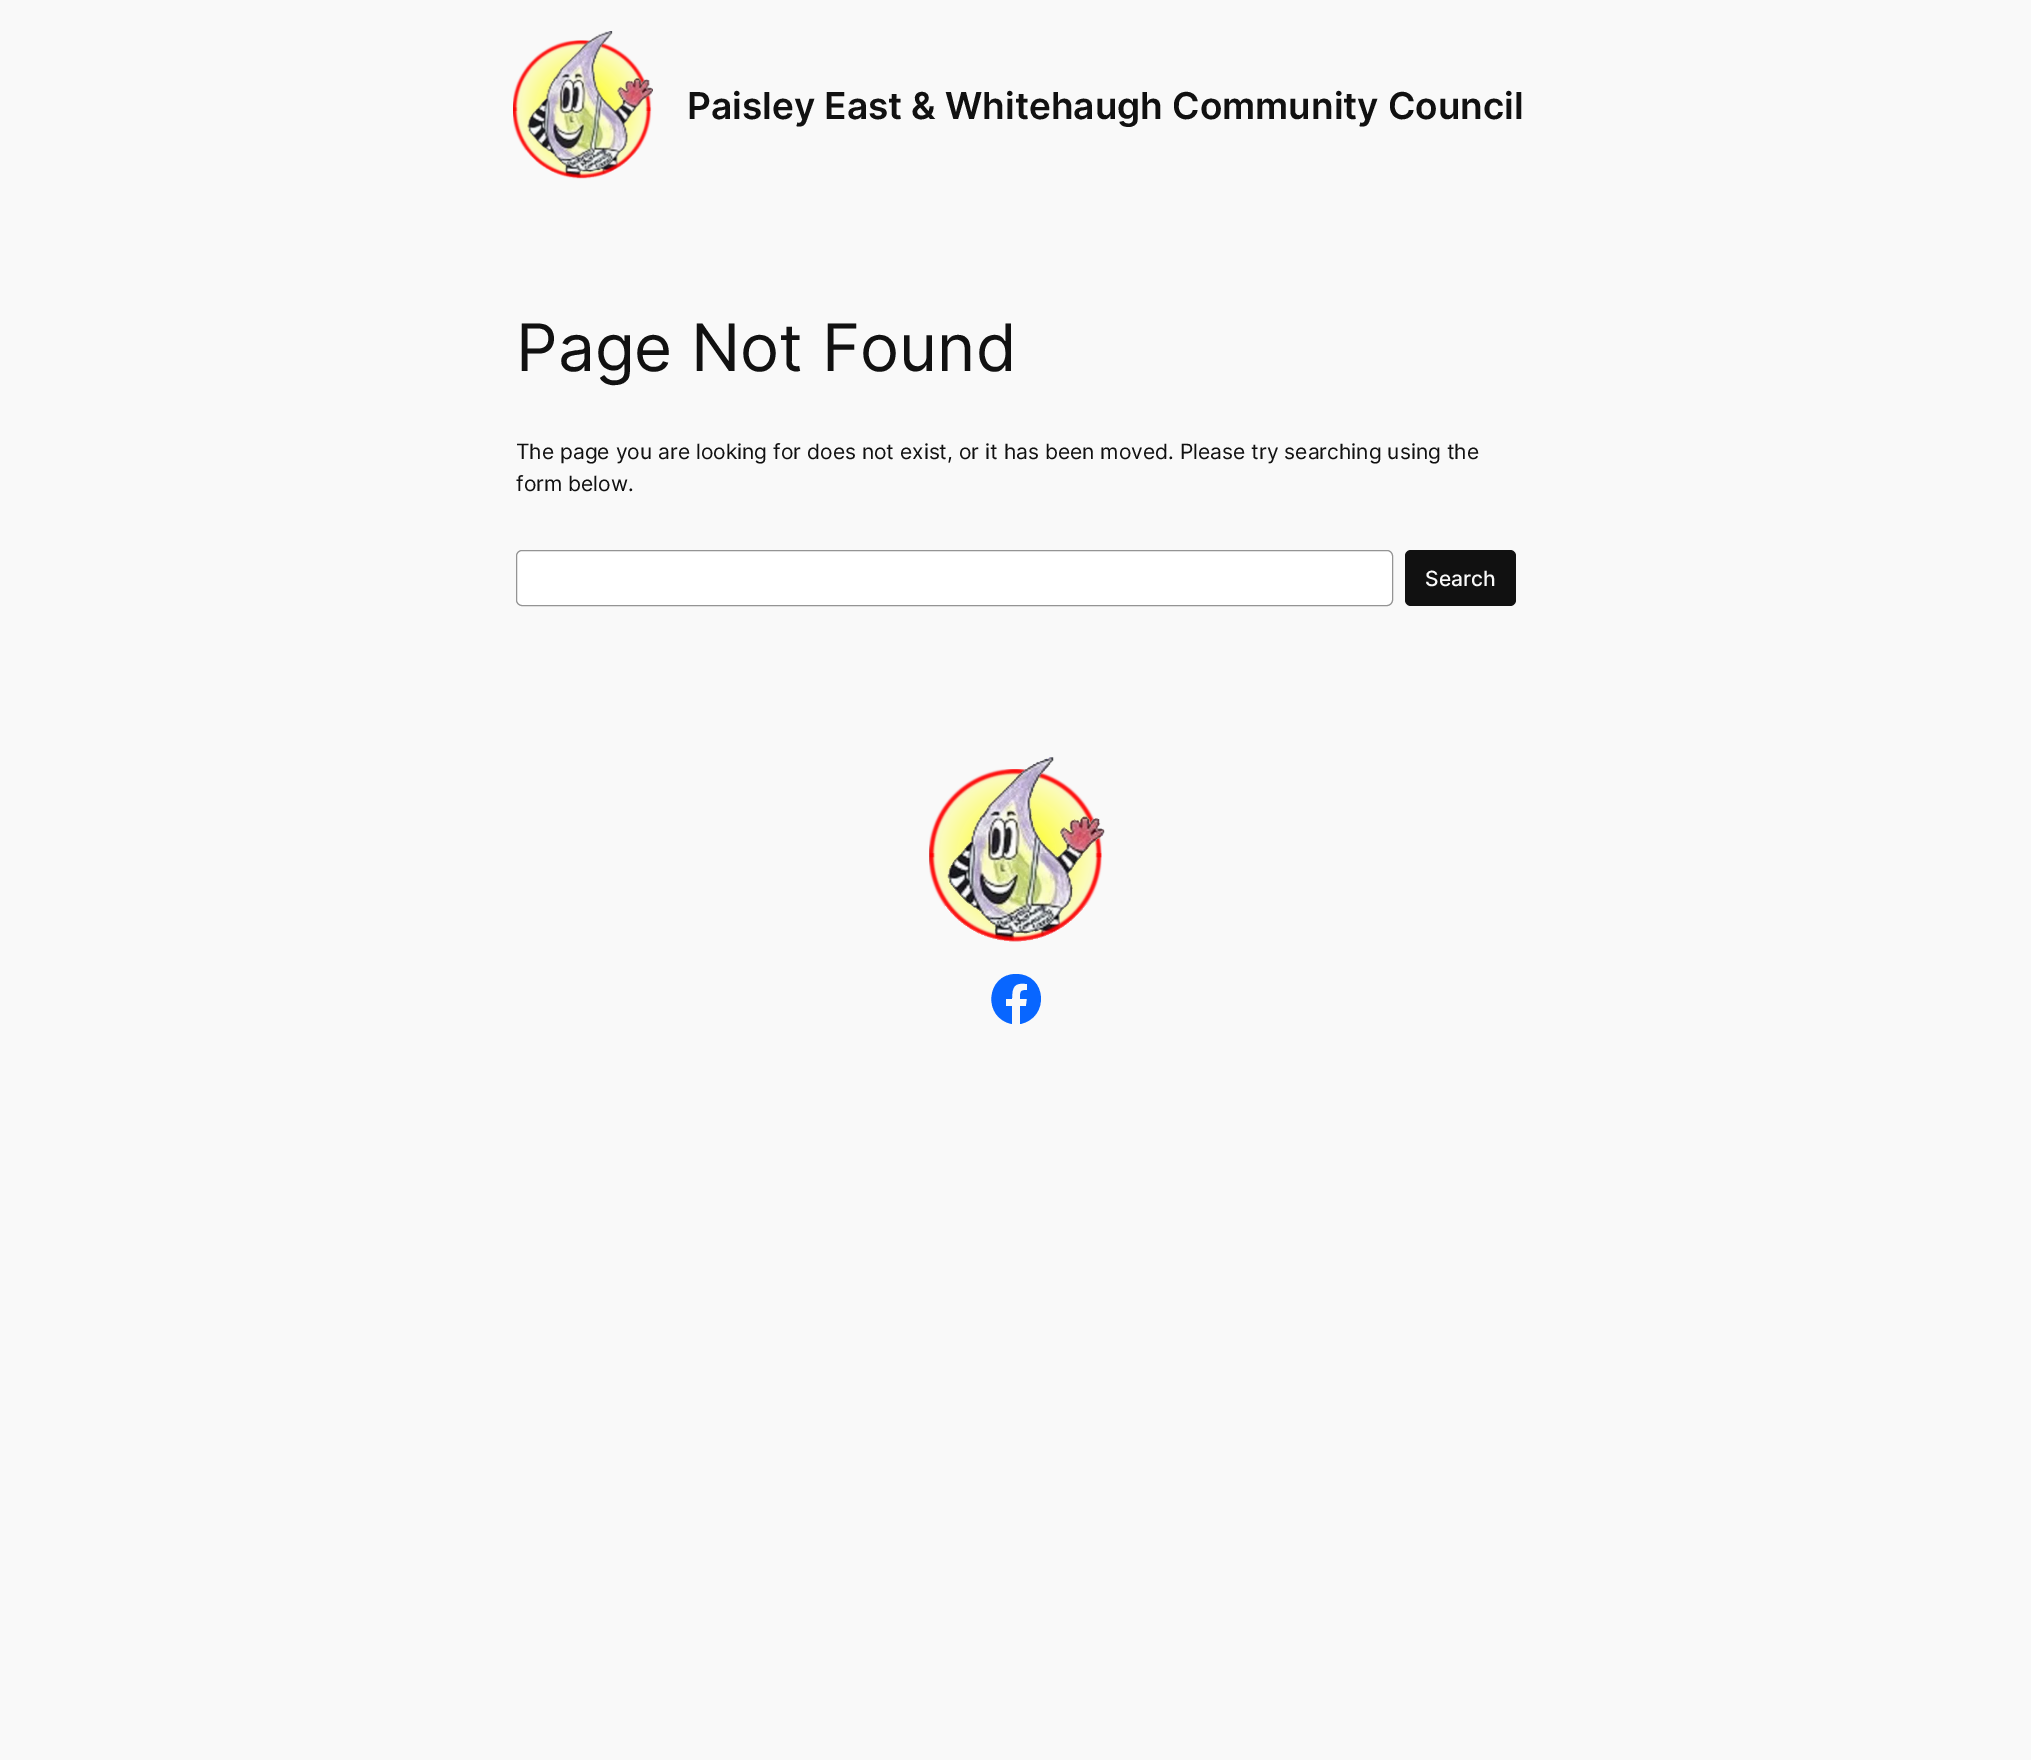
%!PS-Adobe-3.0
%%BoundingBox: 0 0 2031 1760
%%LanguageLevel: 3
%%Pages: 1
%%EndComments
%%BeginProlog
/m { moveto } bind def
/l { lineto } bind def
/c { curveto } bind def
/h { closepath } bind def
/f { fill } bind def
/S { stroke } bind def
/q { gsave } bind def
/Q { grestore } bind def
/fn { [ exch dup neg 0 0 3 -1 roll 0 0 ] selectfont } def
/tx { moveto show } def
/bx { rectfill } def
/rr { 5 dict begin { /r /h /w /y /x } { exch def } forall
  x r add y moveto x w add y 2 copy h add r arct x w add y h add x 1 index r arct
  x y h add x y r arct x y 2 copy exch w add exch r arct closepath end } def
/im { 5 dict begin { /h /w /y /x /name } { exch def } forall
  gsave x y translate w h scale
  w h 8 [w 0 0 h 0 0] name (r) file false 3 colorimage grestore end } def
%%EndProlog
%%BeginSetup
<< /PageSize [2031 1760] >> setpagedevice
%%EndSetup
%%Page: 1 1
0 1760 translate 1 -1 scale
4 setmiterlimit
0.976 setgray
0 0 2031 1760 bx
(image0.raw) 513 31 140 148 im
/Inter-SemiBold 37 fn
0.067 setgray
(Paisley East & Whitehaugh Community Council) 687 119 tx
/Inter-Regular 65.5 fn
(Page Not Found) 516 371 tx
/Inter-Regular 21 fn
(The page you are looking for does not exist, or it has been moved. Please try searching using the) 516 459 tx
(form below.) 516 491 tx
1 setgray
516.5 550.5 876 55 5.5 rr q f Q
0.58 setgray
S
0.067 setgray
1405 550 111 56 6 rr f
/Inter-Medium 21 fn
0.976 setgray
(Search) 1425 586 tx
(image1.raw) 929 757 176 185 im
0.031 0.4 1 setrgbcolor
1016 974 m 986 974 982 1018 1012 1024 c 1012 1006 l 1006 1006 l 1006 999 l 1012 999 l 1012 987 1014 982 1027 984 c 1027 990 l 1020 990 1020 992 1020 999 c 1027 999 l 1026 1006 l 1020 1006 l 1020 1024 l 1050 1018 1047 974 1016 974 c h f
showpage
%%EOF
